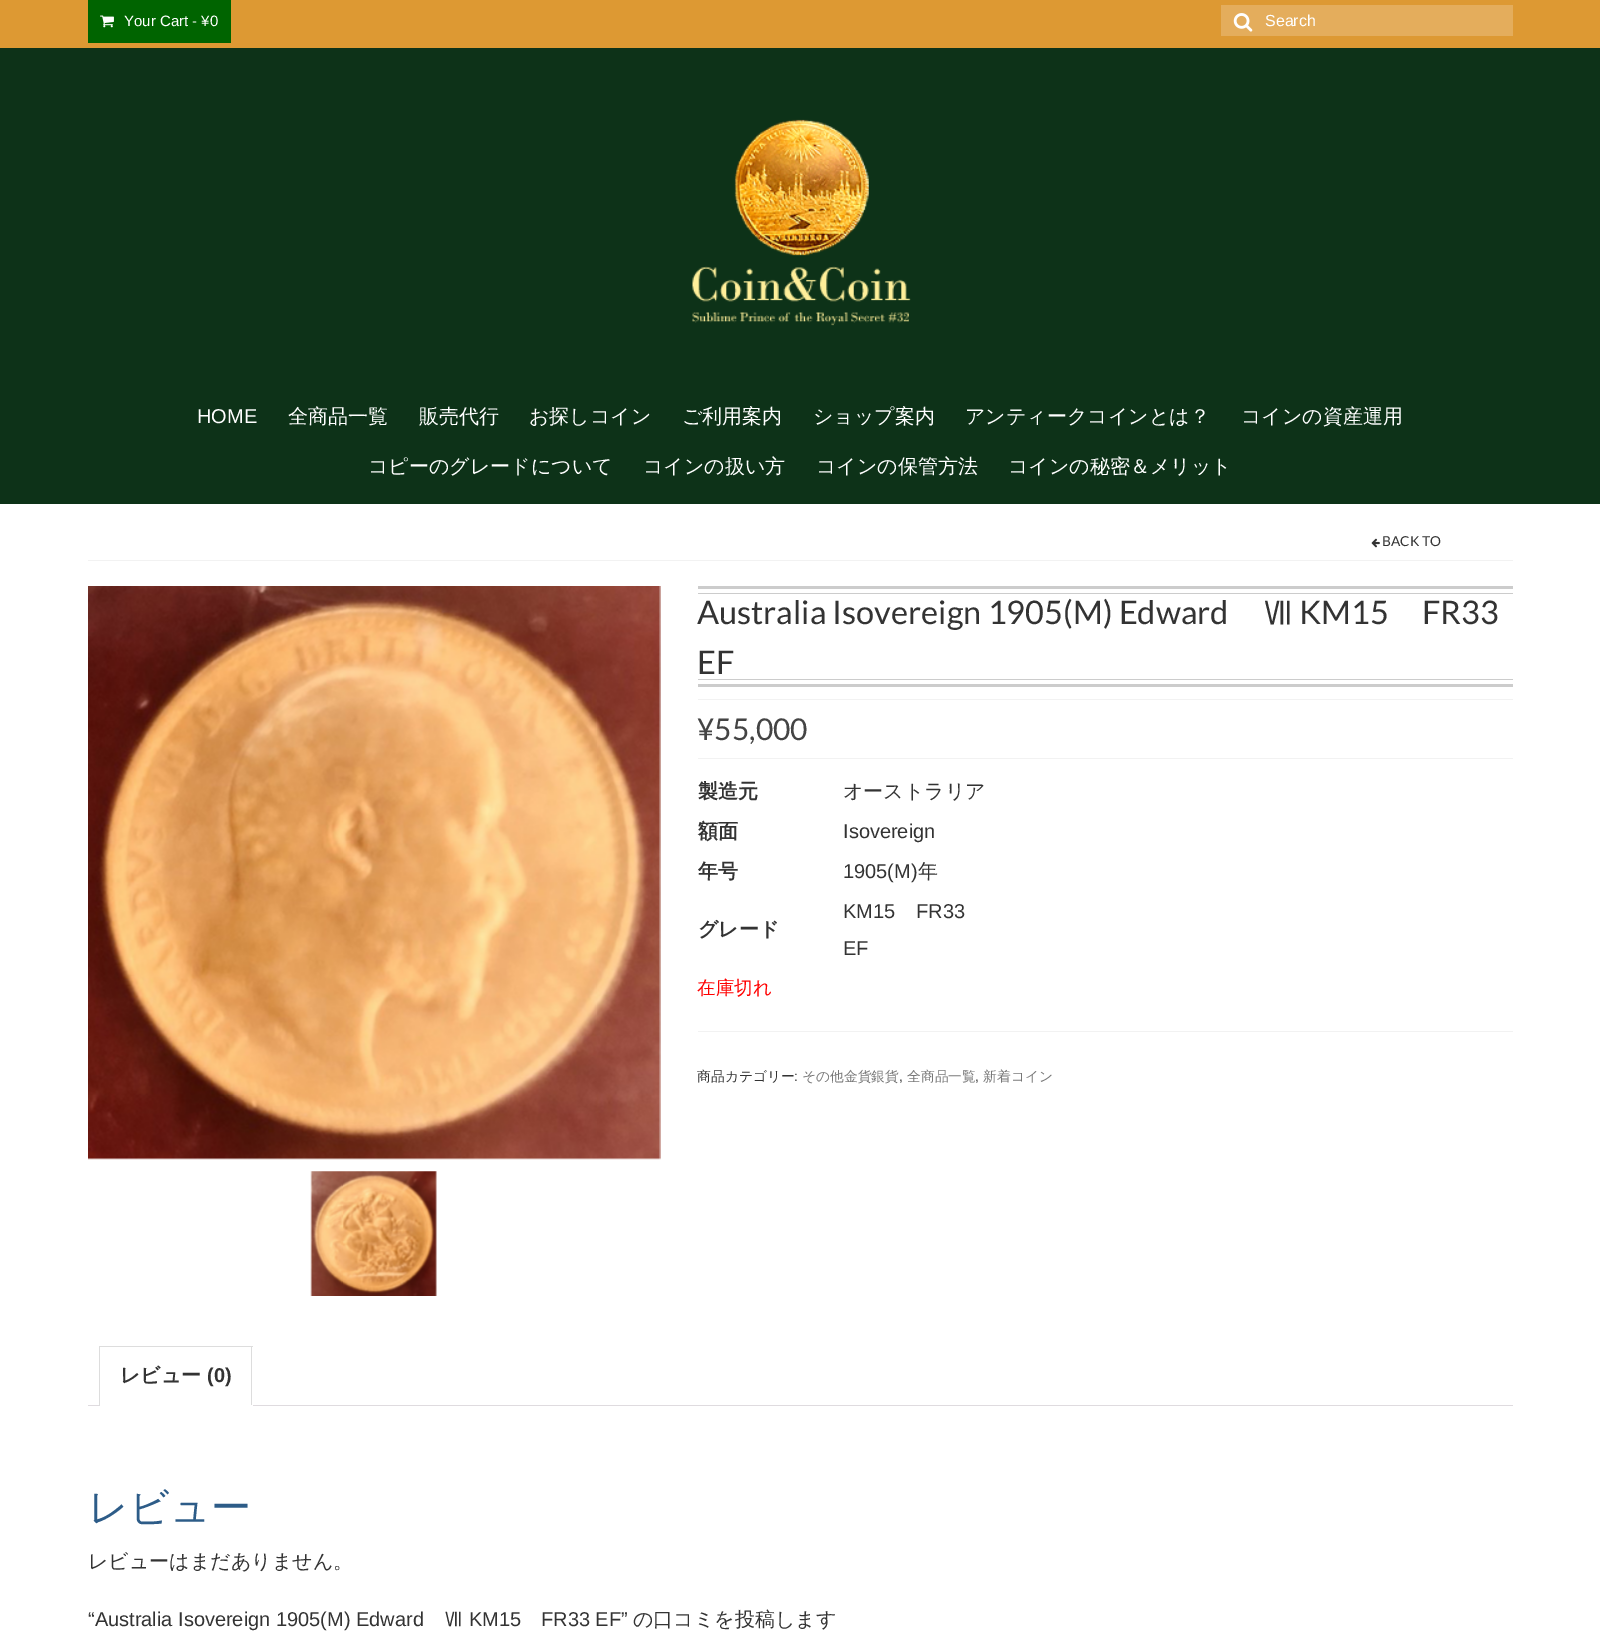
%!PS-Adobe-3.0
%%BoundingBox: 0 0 1600 1633
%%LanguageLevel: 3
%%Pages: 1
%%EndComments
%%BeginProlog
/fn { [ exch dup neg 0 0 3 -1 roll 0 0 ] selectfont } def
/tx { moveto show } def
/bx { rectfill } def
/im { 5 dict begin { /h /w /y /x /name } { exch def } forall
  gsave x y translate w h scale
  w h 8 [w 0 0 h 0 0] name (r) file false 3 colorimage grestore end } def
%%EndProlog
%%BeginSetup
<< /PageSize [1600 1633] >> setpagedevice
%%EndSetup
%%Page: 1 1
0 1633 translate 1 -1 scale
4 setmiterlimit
1 setgray
0 0 1600 1633 bx
0.051 0.196 0.094 setrgbcolor
0 48 1600 456 bx
0.867 0.6 0.2 setrgbcolor
0 0 1600 48 bx
0 0.392 0 setrgbcolor
88 0 143 43 bx
(image0.raw) 100 15 14 13 im
/LiberationSans-Regular 15 fn
1 setgray
(Your Cart - ¥0) 124 26 tx
0.894 0.678 0.361 setrgbcolor
1221 5 292 31 bx
(image1.raw) 1233 13 20 19 im
/LiberationSans-Regular 16 fn
1 setgray
(Search) 1265 26 tx
(image2.raw) 692 119 219 207 im
/LiberationSans-Regular 20 fn
(HOME) 197 423 tx
/WenQuanYiZenHei-Medium 20 fn
(全商品一覧) 288 423 tx
(販売代行) 419 423 tx
(お探しコイン) 529 423 tx
(ご利用案内) 682 423 tx
(ショップ案内) 813 423 tx
(アンティークコインとは？) 965 423 tx
(コインの資産運用) 1241 423 tx
(コピーのグレードについて) 368 473 tx
(コインの扱い方) 643 473 tx
(コインの保管方法) 816 473 tx
(コインの秘密＆メリット) 1008 473 tx
0.949 setgray
88 560 1425 1 bx
(image3.raw) 1371 538 9 10 im
/Lato-Regular 13.75 fn
0.2 setgray
(BACK TO) 1382 546 tx
(image4.raw) 88 586 573 574 im
(image5.raw) 310 1171 127 125 im
0.8 setgray
698 586 815 3 bx
698 593 815 1 bx
/Lato-Regular 32.5 fn
0.2 setgray
(Australia Isovereign 1905\(M\) Edward) 697 624 tx
/WenQuanYiZenHei-Medium 32.5 fn
(Ⅶ) 1261 624 tx
/Lato-Regular 32.5 fn
(KM15) 1299 624 tx
(FR33) 1422 624 tx
(EF) 697 674 tx
0.8 setgray
698 679 815 1 bx
698 684 815 3 bx
0.949 setgray
698 699 815 1 bx
698 758 815 1 bx
/Lato-Regular 30 fn
0.267 setgray
(¥55,000) 697 740 tx
/WenQuanYiZenHei-Bold 20 fn
0.2 setgray
(製造元) 698 798 tx
/WenQuanYiZenHei-Medium 20 fn
(オーストラリア) 843 798 tx
/WenQuanYiZenHei-Bold 20 fn
(額面) 698 838 tx
/LiberationSans-Regular 20 fn
(Isovereign) 843 838 tx
/WenQuanYiZenHei-Bold 20 fn
(年号) 698 878 tx
/LiberationSans-Regular 20 fn
(1905\(M\)) 843 878 tx
/WenQuanYiZenHei-Medium 20 fn
(年) 918 878 tx
/WenQuanYiZenHei-Bold 20 fn
(グレード) 698 936 tx
/LiberationSans-Regular 20 fn
(KM15) 843 918 tx
(FR33) 916 918 tx
(EF) 843 955 tx
/WenQuanYiZenHei-Medium 18.5 fn
1 0 0 setrgbcolor
(在庫切れ) 697 994 tx
0.949 setgray
698 1031 815 1 bx
/WenQuanYiZenHei-Medium 13.75 fn
0.2 setgray
(商品カテゴリー) 697 1081 tx
/LiberationSans-Regular 13.75 fn
(:) 794 1081 tx
/WenQuanYiZenHei-Medium 13.75 fn
0.467 setgray
(その他金貨銀貨) 802 1081 tx
/LiberationSans-Regular 13.75 fn
0.2 setgray
(,) 899 1081 tx
/WenQuanYiZenHei-Medium 13.75 fn
0.467 setgray
(全商品一覧) 907 1081 tx
/LiberationSans-Regular 13.75 fn
0.2 setgray
(,) 975 1081 tx
/WenQuanYiZenHei-Medium 13.75 fn
0.467 setgray
(新着コイン) 983 1081 tx
0.867 setgray
99 1346 154 1 bx
0.875 0.859 0.875 setrgbcolor
88 1405 1425 1 bx
0.867 setgray
251 1346 1 60 bx
1 setgray
99 1405 154 1 bx
0.867 setgray
99 1346 1 60 bx
/WenQuanYiZenHei-Bold 20 fn
0.2 setgray
(レビュー) 120 1382 tx
/LiberationSans-Bold 20 fn
(\(0\)) 207 1382 tx
/WenQuanYiZenHei-Medium 40 fn
0.176 0.361 0.533 setrgbcolor
(レビュー) 88 1521 tx
/WenQuanYiZenHei-Medium 20 fn
0.2 setgray
(レビューはまだありません。) 88 1568 tx
/LiberationSans-Regular 20 fn
(“Australia Isovereign 1905\(M\) Edward) 88 1626 tx
/WenQuanYiZenHei-Medium 20 fn
(Ⅶ) 443 1626 tx
/LiberationSans-Regular 20 fn
(KM15) 469 1626 tx
(FR33 EF”) 541 1626 tx
/WenQuanYiZenHei-Medium 20 fn
(の口コミを投稿します) 633 1626 tx
showpage
%%EOF
